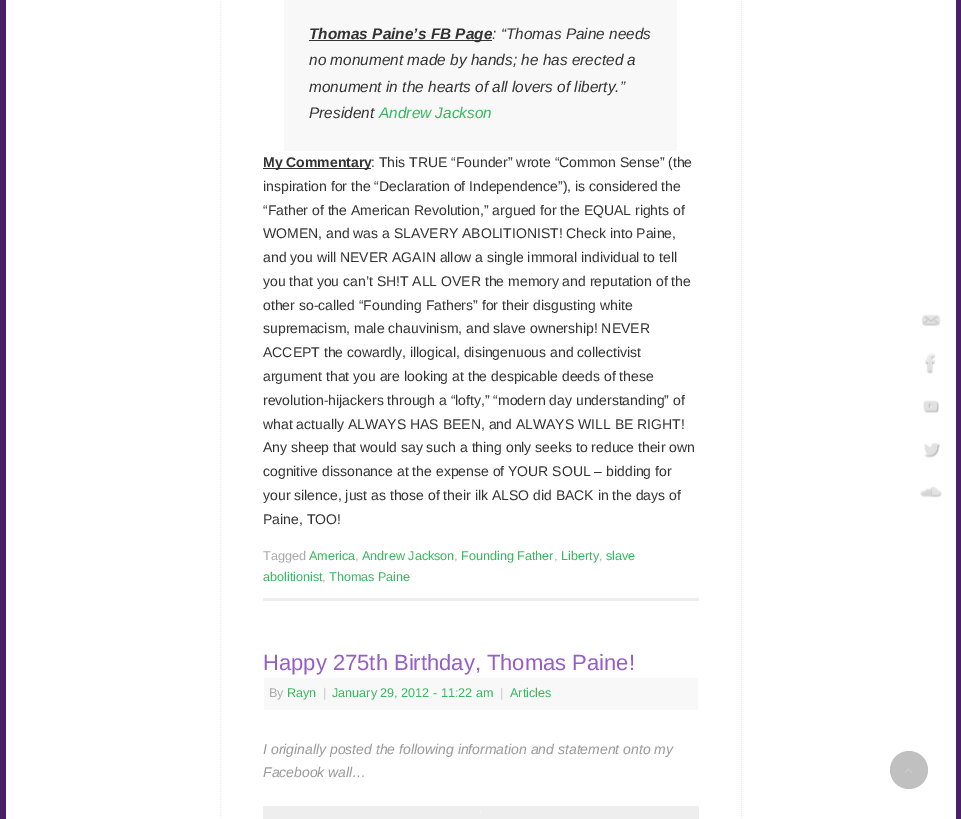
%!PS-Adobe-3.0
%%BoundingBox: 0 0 961 819
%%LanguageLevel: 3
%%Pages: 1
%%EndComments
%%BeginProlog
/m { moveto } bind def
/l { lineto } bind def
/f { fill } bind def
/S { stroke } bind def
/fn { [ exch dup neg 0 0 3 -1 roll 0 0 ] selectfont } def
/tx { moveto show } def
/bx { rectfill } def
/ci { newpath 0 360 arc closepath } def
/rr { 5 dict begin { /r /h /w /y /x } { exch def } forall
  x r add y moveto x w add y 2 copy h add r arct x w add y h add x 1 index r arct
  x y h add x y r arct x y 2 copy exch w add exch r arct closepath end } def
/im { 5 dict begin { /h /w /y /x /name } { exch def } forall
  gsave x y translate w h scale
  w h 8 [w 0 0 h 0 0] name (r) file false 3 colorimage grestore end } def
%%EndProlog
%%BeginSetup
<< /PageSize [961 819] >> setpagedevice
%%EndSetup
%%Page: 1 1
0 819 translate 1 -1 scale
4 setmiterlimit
0.286 0.125 0.396 setrgbcolor
0 0 961 819 bx
1 setgray
6 0 950 819 bx
0.933 setgray
[1 1] 0 setdash
220.5 -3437 m 220.5 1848 l S
263 598 436 3 bx
0.973 setgray
284 -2 393 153 2 rr f
0.2 setgray
309 40 183 1 bx
/LiberationSans-BoldItalic 15.4 fn
(Thomas Paine’s FB Page) 309 39 tx
/LiberationSans-Italic 15.4 fn
(: “Thomas Paine needs) 492 39 tx
(no monument made by hands; he has erected a) 309 65 tx
(monument in the hearts of all lovers of liberty.”) 309 92 tx
(President) 309 118 tx
0.216 0.722 0.369 setrgbcolor
(Andrew Jackson) 379 118 tx
0.2 setgray
263 168 108 1 bx
/LiberationSans-Bold 14 fn
(My Commentary) 263 167 tx
/LiberationSans-Regular 14 fn
(: This TRUE “Founder” wrote “Common Sense” \(the) 371 167 tx
(inspiration for the “Declaration of Independence”\), is considered the) 263 191 tx
(“Father of the American Revolution,” argued for the EQUAL rights of) 263 215 tx
(WOMEN, and was a SLAVERY ABOLITIONIST! Check into Paine,) 263 238 tx
(and you will NEVER AGAIN allow a single immoral individual to tell) 263 262 tx
(you that you can’t SH!T ALL OVER the memory and reputation of the) 263 286 tx
(other so-called “Founding Fathers” for their disgusting white) 263 310 tx
(supremacism, male chauvinism, and slave ownership! NEVER) 263 333 tx
(ACCEPT the cowardly, illogical, disingenuous and collectivist) 263 357 tx
(argument that you are looking at the despicable deeds of these) 263 381 tx
(revolution-hijackers through a “lofty,” “modern day understanding” of) 263 405 tx
(what actually ALWAYS HAS BEEN, and ALWAYS WILL BE RIGHT!) 263 429 tx
(Any sheep that would say such a thing only seeks to reduce their own) 263 452 tx
(cognitive dissonance at the expense of YOUR SOUL – bidding for) 263 476 tx
(your silence, just as those of their ilk ALSO did BACK in the days of) 263 500 tx
(Paine, TOO!) 263 524 tx
/LiberationSans-Regular 12.6 fn
0.667 setgray
(Tagged) 263 560 tx
0.216 0.722 0.369 setrgbcolor
(America) 309 560 tx
0.667 setgray
(,) 355 560 tx
0.216 0.722 0.369 setrgbcolor
(Andrew Jackson) 362 560 tx
0.667 setgray
(,) 454 560 tx
0.216 0.722 0.369 setrgbcolor
(Founding Father) 461 560 tx
0.667 setgray
(,) 554 560 tx
0.216 0.722 0.369 setrgbcolor
(Liberty) 561 560 tx
0.667 setgray
(,) 599 560 tx
0.216 0.722 0.369 setrgbcolor
(slave) 606 560 tx
(abolitionist) 263 581 tx
0.667 setgray
(,) 322 581 tx
0.216 0.722 0.369 setrgbcolor
(Thomas Paine) 329 581 tx
/LiberationSans-Regular 22 fn
0.588 0.369 0.769 setrgbcolor
(Happy 275th Birthday, Thomas Paine!) 263 670 tx
0.973 setgray
264 678 434 32 bx
/LiberationSans-Regular 12.6 fn
0.667 setgray
(By) 269 697 tx
0.216 0.722 0.369 setrgbcolor
(Rayn) 287 697 tx
0.82 setgray
(|) 323 697 tx
0.216 0.722 0.369 setrgbcolor
(January 29, 2012 - 11:22 am) 332 697 tx
0.82 setgray
(|) 500 697 tx
0.216 0.722 0.369 setrgbcolor
(Articles) 510 697 tx
/LiberationSans-Italic 14 fn
0.6 setgray
(I originally posted the following information and statement onto my) 263 754 tx
(Facebook wall…) 263 777 tx
0.933 setgray
263 806 436 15 2 rr f
1 setgray
480 811 1 1 bx
0.918 setgray
741.5 -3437 m 741.5 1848 l S
(image0.raw) 922 314 19 12 im
(image1.raw) 925 353 11 21 im
(image2.raw) 923 400 16 13 im
(image3.raw) 924 442 16 16 im
(image4.raw) 920 486 22 12 im
0.753 setgray
909 770 19 ci f
(image5.raw) 905 768 7 5 im
showpage
%%EOF
